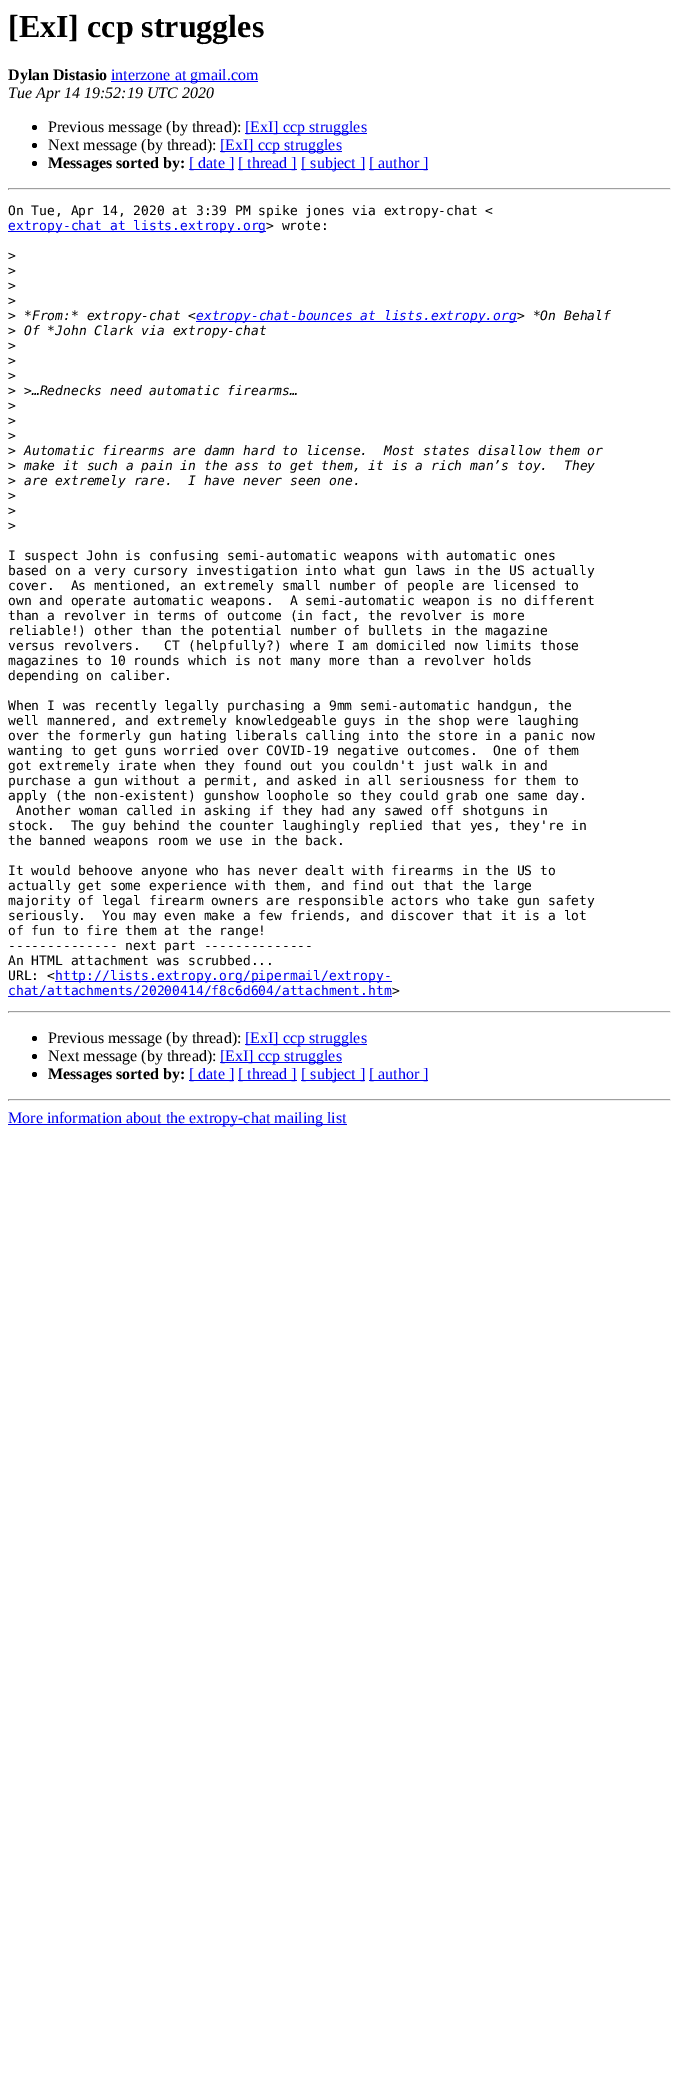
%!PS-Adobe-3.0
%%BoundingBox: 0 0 679 2097
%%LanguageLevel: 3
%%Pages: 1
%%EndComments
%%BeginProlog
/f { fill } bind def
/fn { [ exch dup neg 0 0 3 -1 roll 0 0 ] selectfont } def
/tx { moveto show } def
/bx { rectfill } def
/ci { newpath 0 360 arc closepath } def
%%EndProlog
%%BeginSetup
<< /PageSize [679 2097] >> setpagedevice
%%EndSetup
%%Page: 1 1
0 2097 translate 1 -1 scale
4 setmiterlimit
1 setgray
0 0 679 2097 bx
/LiberationSerif-Bold 32 fn
0 setgray
([ExI] ccp struggles) 8 37 tx
/LiberationSerif-Bold 16 fn
(Dylan Distasio) 8 80 tx
0 0 0.933 setrgbcolor
111 81 147 1 bx
/LiberationSerif-Regular 16 fn
(interzone at gmail.com) 111 80 tx
/LiberationSerif-Italic 16 fn
0 setgray
(Tue Apr 14 19:52:19 UTC 2020) 8 98 tx
34.5 127.5 2.5 ci f
/LiberationSerif-Regular 16 fn
(Previous message \(by thread\):) 48 132 tx
0 0 0.933 setrgbcolor
245 133 122 1 bx
([ExI] ccp struggles) 245 132 tx
0 setgray
34.5 145.5 2.5 ci f
(Next message \(by thread\):) 48 150 tx
0 0 0.933 setrgbcolor
220 151 122 1 bx
([ExI] ccp struggles) 220 150 tx
0 setgray
34.5 163.5 2.5 ci f
/LiberationSerif-Bold 16 fn
(Messages sorted by:) 48 168 tx
0 0 0.933 setrgbcolor
189 169 45 1 bx
/LiberationSerif-Regular 16 fn
([ date ]) 189 168 tx
238 169 59 1 bx
([ thread ]) 238 168 tx
301 169 64 1 bx
([ subject ]) 301 168 tx
369 169 59 1 bx
([ author ]) 369 168 tx
0.624 setgray
8 188 663 1 bx
0.933 setgray
670 188 1 2 bx
8 189 663 1 bx
0.624 setgray
8 188 1 2 bx
/DejaVuSansMono-Regular 13 fn
0 setgray
(On Tue, Apr 14, 2020 at 3:39 PM spike jones via extropy-chat <) 8 215 tx
0 0 0.933 setrgbcolor
8 231 258 1 bx
(extropy-chat at lists.extropy.org) 8 230 tx
0 setgray
(> wrote:) 266 230 tx
(>) 8 260 tx
(>) 8 275 tx
(>) 8 290 tx
(>) 8 305 tx
(>) 8 320 tx
/DejaVuSansMono-Italic 13 fn
(*From:* extropy-chat <) 24 320 tx
0 0 0.933 setrgbcolor
196 321 321 1 bx
(extropy-chat-bounces at lists.extropy.org) 196 320 tx
0 setgray
(> *On Behalf) 517 320 tx
/DejaVuSansMono-Regular 13 fn
(>) 8 335 tx
/DejaVuSansMono-Italic 13 fn
(Of *John Clark via extropy-chat) 24 335 tx
/DejaVuSansMono-Regular 13 fn
(>) 8 350 tx
(>) 8 365 tx
(>) 8 380 tx
(>) 8 395 tx
/DejaVuSansMono-Italic 13 fn
(>…Rednecks need automatic firearms…) 24 395 tx
/DejaVuSansMono-Regular 13 fn
(>) 8 410 tx
(>) 8 425 tx
(>) 8 440 tx
(>) 8 455 tx
/DejaVuSansMono-Italic 13 fn
(Automatic firearms are damn hard to license.  Most states disallow them or) 24 455 tx
/DejaVuSansMono-Regular 13 fn
(>) 8 470 tx
/DejaVuSansMono-Italic 13 fn
(make it such a pain in the ass to get them, it is a rich man’s toy.  They) 24 470 tx
/DejaVuSansMono-Regular 13 fn
(>) 8 485 tx
/DejaVuSansMono-Italic 13 fn
(are extremely rare.  I have never seen one.) 24 485 tx
/DejaVuSansMono-Regular 13 fn
(>) 8 500 tx
(>) 8 515 tx
(>) 8 530 tx
(I suspect John is confusing semi-automatic weapons with automatic ones) 8 560 tx
(based on a very cursory investigation into what gun laws in the US actually) 8 575 tx
(cover.  As mentioned, an extremely small number of people are licensed to) 8 590 tx
(own and operate automatic weapons.  A semi-automatic weapon is no different) 8 605 tx
(than a revolver in terms of outcome \(in fact, the revolver is more) 8 620 tx
(reliable!\) other than the potential number of bullets in the magazine) 8 635 tx
(versus revolvers.   CT \(helpfully?\) where I am domiciled now limits those) 8 650 tx
(magazines to 10 rounds which is not many more than a revolver holds) 8 665 tx
(depending on caliber.) 8 680 tx
(When I was recently legally purchasing a 9mm semi-automatic handgun, the) 8 710 tx
(well mannered, and extremely knowledgeable guys in the shop were laughing) 8 725 tx
(over the formerly gun hating liberals calling into the store in a panic now) 8 740 tx
(wanting to get guns worried over COVID-19 negative outcomes.  One of them) 8 755 tx
(got extremely irate when they found out you couldn't just walk in and) 8 770 tx
(purchase a gun without a permit, and asked in all seriousness for them to) 8 785 tx
(apply \(the non-existent\) gunshow loophole so they could grab one same day.) 8 800 tx
(Another woman called in asking if they had any sawed off shotguns in) 16 815 tx
(stock.  The guy behind the counter laughingly replied that yes, they're in) 8 830 tx
(the banned weapons room we use in the back.) 8 845 tx
(It would behoove anyone who has never dealt with firearms in the US to) 8 875 tx
(actually get some experience with them, and find out that the large) 8 890 tx
(majority of legal firearm owners are responsible actors who take gun safety) 8 905 tx
(seriously.  You may even make a few friends, and discover that it is a lot) 8 920 tx
(of fun to fire them at the range!) 8 935 tx
(-------------- next part --------------) 8 950 tx
(An HTML attachment was scrubbed...) 8 965 tx
(URL: <) 8 980 tx
0 0 0.933 setrgbcolor
55 981 337 1 bx
(http://lists.extropy.org/pipermail/extropy-) 55 980 tx
8 996 384 1 bx
(chat/attachments/20200414/f8c6d604/attachment.htm) 8 995 tx
0 setgray
(>) 392 995 tx
0.624 setgray
8 1011 663 1 bx
0.933 setgray
670 1011 1 2 bx
8 1012 663 1 bx
0.624 setgray
8 1011 1 2 bx
0 setgray
34.5 1038.5 2.5 ci f
/LiberationSerif-Regular 16 fn
(Previous message \(by thread\):) 48 1043 tx
0 0 0.933 setrgbcolor
245 1044 122 1 bx
([ExI] ccp struggles) 245 1043 tx
0 setgray
34.5 1056.5 2.5 ci f
(Next message \(by thread\):) 48 1061 tx
0 0 0.933 setrgbcolor
220 1062 122 1 bx
([ExI] ccp struggles) 220 1061 tx
0 setgray
34.5 1074.5 2.5 ci f
/LiberationSerif-Bold 16 fn
(Messages sorted by:) 48 1079 tx
0 0 0.933 setrgbcolor
189 1080 45 1 bx
/LiberationSerif-Regular 16 fn
([ date ]) 189 1079 tx
238 1080 59 1 bx
([ thread ]) 238 1079 tx
301 1080 64 1 bx
([ subject ]) 301 1079 tx
369 1080 59 1 bx
([ author ]) 369 1079 tx
0.624 setgray
8 1099 663 1 bx
0.933 setgray
670 1099 1 2 bx
8 1100 663 1 bx
0.624 setgray
8 1099 1 2 bx
0 0 0.933 setrgbcolor
8 1124 339 1 bx
(More information about the extropy-chat mailing list) 8 1123 tx
showpage
%%EOF
